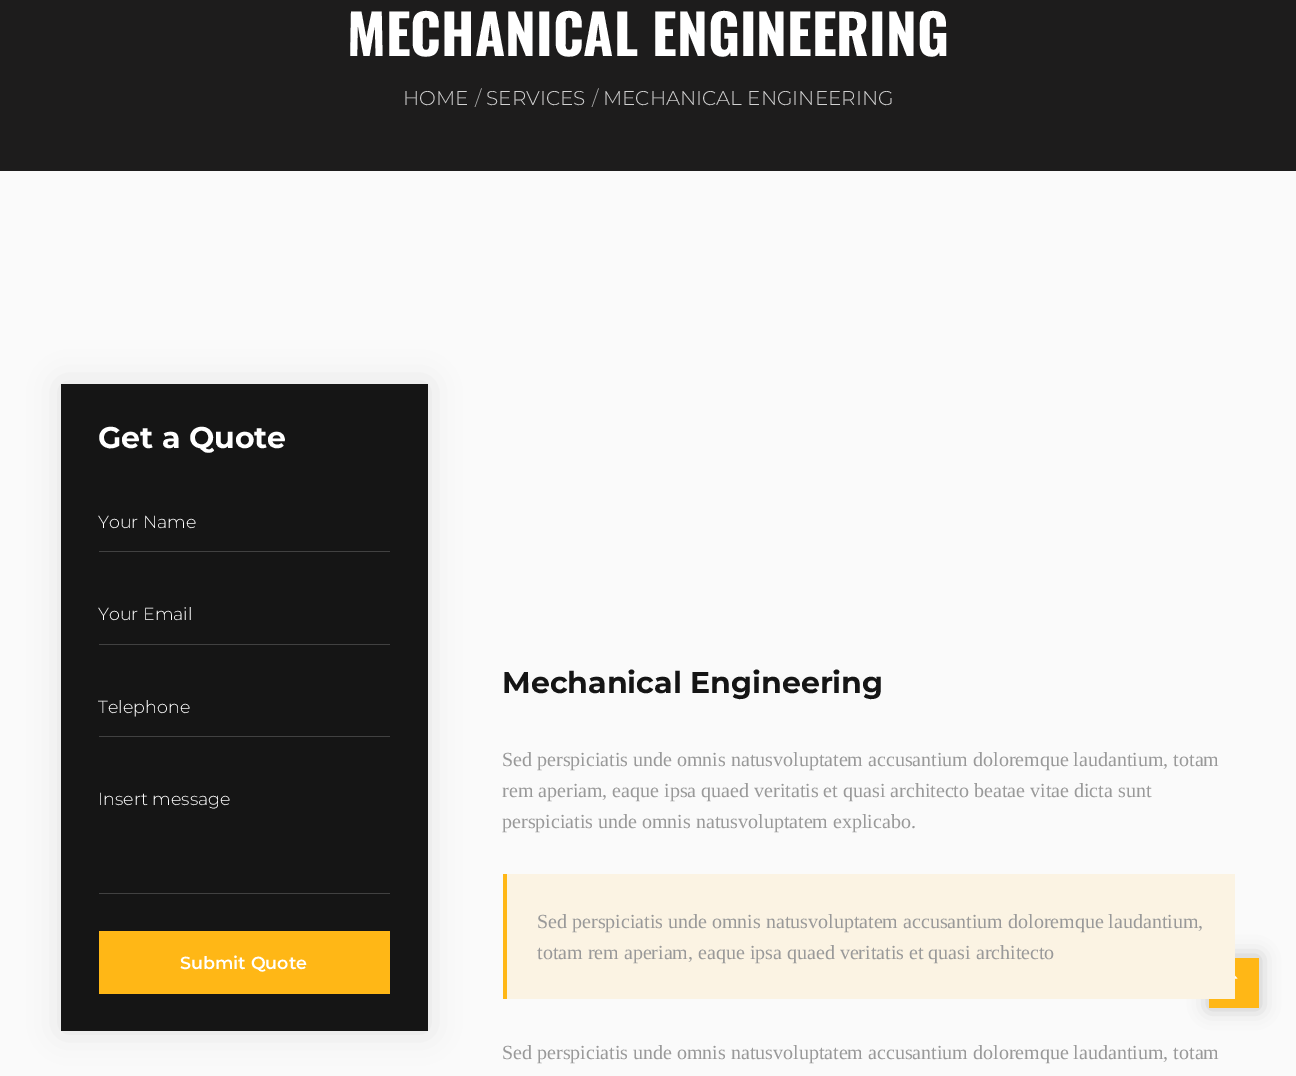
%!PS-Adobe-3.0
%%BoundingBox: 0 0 1296 1076
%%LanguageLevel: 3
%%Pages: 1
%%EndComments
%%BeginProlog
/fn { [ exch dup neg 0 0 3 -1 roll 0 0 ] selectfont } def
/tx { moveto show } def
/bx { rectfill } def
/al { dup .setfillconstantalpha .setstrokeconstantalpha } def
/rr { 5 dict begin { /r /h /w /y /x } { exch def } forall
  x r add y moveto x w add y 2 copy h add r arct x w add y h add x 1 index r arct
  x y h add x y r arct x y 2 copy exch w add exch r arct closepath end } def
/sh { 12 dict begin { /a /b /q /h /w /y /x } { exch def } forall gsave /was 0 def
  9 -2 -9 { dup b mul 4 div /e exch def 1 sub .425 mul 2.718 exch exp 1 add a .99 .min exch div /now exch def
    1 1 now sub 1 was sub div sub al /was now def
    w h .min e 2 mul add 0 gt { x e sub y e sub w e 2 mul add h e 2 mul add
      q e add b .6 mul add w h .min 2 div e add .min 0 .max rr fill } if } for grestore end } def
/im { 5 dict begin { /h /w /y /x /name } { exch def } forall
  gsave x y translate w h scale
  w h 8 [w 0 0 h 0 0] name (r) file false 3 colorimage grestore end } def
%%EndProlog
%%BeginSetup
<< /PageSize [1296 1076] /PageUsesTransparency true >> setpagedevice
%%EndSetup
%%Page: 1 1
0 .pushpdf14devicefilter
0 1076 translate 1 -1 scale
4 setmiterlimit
0.98 setgray
0 0 1296 1076 bx
0.114 0.11 0.11 setrgbcolor
0 0 1296 171 bx
/Oswald-Bold 55 fn
1 setgray
(MECHANICAL ENGINEERING) 347 56 tx
/Montserrat-Light 20 fn
0.824 setgray
(HOME) 403 105 tx
0.663 setgray
(/) 475 105 tx
0.824 setgray
(SERVICES) 486 105 tx
0.663 setgray
(/) 592 105 tx
0.824 setgray
(MECHANICAL ENGINEERING) 603 105 tx
0 setgray
61 384 367 647 0 15.5 0.1 sh
0.082 setgray
61 384 367 647 bx
/Montserrat-Bold 30 fn
1 setgray
(Get a Quote) 98 448 tx
0.255 setgray
99 551 291 1 bx
/Montserrat-Light 17.5 fn
1 setgray
(Your Name) 98 528 tx
0.255 setgray
99 644 291 1 bx
1 setgray
(Your Email) 98 620 tx
0.255 setgray
99 736 291 1 bx
1 setgray
(Telephone) 98 713 tx
0.255 setgray
99 893 291 1 bx
1 setgray
(Insert message) 98 805 tx
1 0.718 0.086 setrgbcolor
99 931 291 63 bx
/Montserrat-SemiBold 17.5 fn
1 setgray
(Submit Quote) 180 969 tx
/Montserrat-Bold 30 fn
0.082 setgray
(Mechanical Engineering) 502 693 tx
/LiberationSerif-Regular 20 fn
0.6 setgray
(Sed perspiciatis unde omnis natusvoluptatem accusantium doloremque laudantium, totam) 502 766 tx
(rem aperiam, eaque ipsa quaed veritatis et quasi architecto beatae vitae dicta sunt) 502 797 tx
(perspiciatis unde omnis natusvoluptatem explicabo.) 502 828 tx
0 setgray
1208 956 52 53 0 9.5 0.2 sh
1 0.718 0.086 setrgbcolor
1209 958 50 50 bx
0.984 0.953 0.89 setrgbcolor
507 874 728 125 bx
1 0.718 0.086 setrgbcolor
503 874 4 125 bx
0.6 setgray
(Sed perspiciatis unde omnis natusvoluptatem accusantium doloremque laudantium,) 537 928 tx
(totam rem aperiam, eaque ipsa quaed veritatis et quasi architecto) 537 959 tx
(Sed perspiciatis unde omnis natusvoluptatem accusantium doloremque laudantium, totam) 502 1059 tx
(image0.raw) 1235 975 3 4 im
.poppdf14devicefilter showpage
%%EOF
